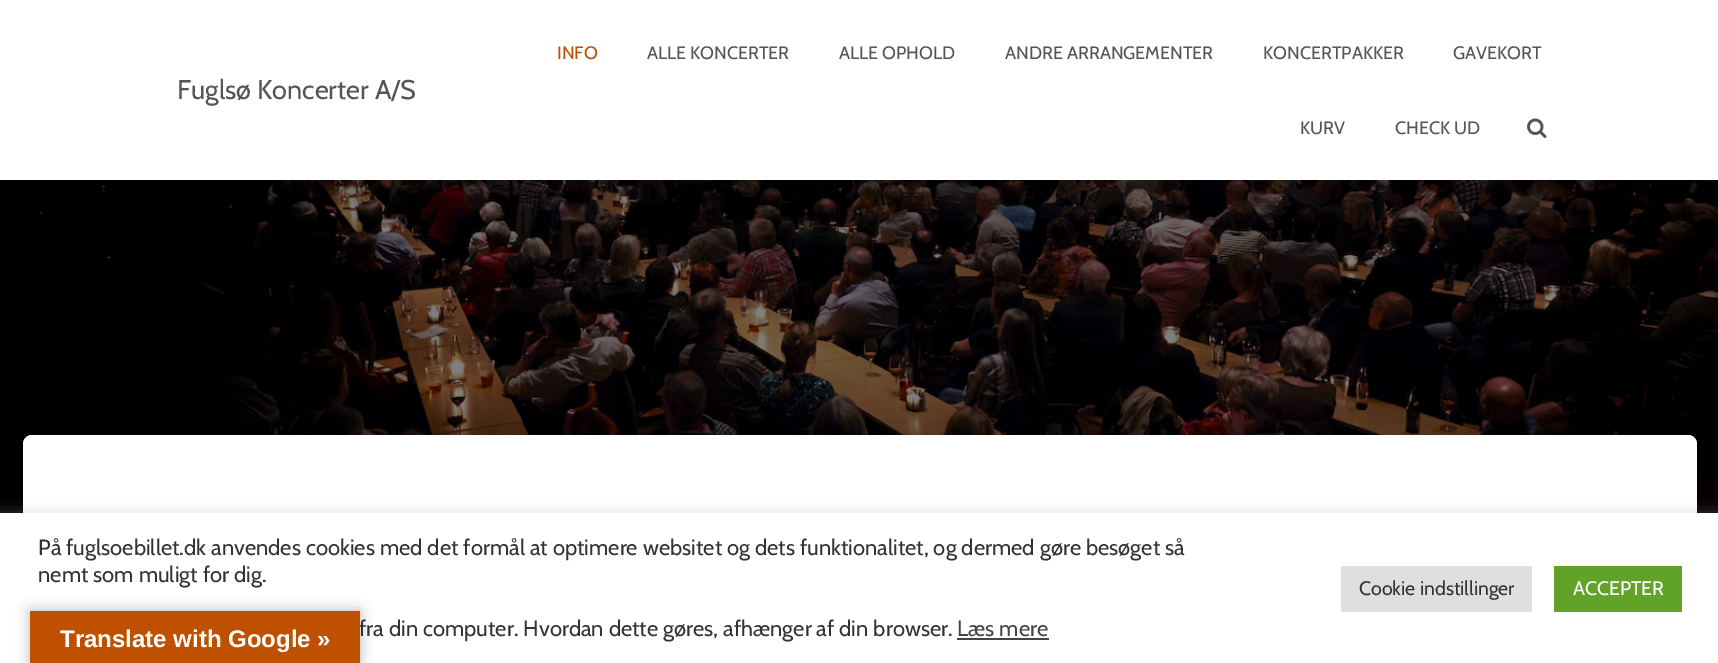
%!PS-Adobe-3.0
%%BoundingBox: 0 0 1718 663
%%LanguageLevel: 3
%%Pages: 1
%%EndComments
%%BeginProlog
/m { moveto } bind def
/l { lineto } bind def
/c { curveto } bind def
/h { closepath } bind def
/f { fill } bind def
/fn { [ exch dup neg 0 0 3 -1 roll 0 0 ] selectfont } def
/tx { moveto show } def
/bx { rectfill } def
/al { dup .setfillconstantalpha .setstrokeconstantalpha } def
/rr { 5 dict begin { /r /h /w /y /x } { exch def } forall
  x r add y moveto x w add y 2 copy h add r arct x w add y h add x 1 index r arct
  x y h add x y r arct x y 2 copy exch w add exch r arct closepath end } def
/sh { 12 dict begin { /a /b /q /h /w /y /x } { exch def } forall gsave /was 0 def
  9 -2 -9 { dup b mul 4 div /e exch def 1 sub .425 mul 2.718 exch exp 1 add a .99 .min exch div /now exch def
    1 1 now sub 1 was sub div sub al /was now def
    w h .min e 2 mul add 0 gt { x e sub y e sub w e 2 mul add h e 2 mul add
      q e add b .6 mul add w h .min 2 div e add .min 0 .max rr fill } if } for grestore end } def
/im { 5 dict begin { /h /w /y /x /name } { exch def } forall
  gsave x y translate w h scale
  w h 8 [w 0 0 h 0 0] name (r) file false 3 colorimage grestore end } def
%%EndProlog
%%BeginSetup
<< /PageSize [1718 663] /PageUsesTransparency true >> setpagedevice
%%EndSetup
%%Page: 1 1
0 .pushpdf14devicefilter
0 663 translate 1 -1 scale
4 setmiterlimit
1 setgray
0 0 1718 663 bx
(image1.raw) 0 180 1718 333 im
0 setgray
8 20 1704 165 0 7.5 0.2 sh
0 5 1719 180 0 15 0.12 sh
18 33 1683 144 0 15 0.42 sh
1 setgray
0 0 1718 180 bx
/Cabin-Regular 27 fn
0.333 setgray
(Fuglsø Koncerter A/S) 177 99 tx
/Cabin-Regular 18 fn
0.745 0.314 0 setrgbcolor
(INFO) 557 59 tx
0.333 setgray
(ALLE KONCERTER) 647 59 tx
(ALLE OPHOLD) 839 59 tx
(ANDRE ARRANGEMENTER) 1005 59 tx
(KONCERTPAKKER) 1263 59 tx
(GAVEKORT) 1453 59 tx
(KURV) 1300 134 tx
(CHECK UD) 1395 134 tx
(image0.raw) 1527 118 20 20 im
0 setgray
30 455 1659 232 1.5 7.5 0.2 sh
15 437 1689 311 17 22.5 0.12 sh
20 456 1680 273 12 18 0.14 sh
1 setgray
32 435 m 1688 435 l 1693 435 1697 439 1697 444 c 1697 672 l 23 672 l 23 444 l 23 439 27 435 32 435 c h f
0.675 0.671 0.671 setrgbcolor
0 512 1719 150 0 7.5 0.3 sh
1 setgray
0 513 1718 150 bx
/Cabin-Regular 22 fn
0.2 setgray
(På fuglsoebillet.dk anvendes cookies med det formål at optimere websitet og dets funktionalitet, og dermed gøre besøget så) 38 555 tx
(nemt som muligt for dig.) 38 582 tx
(fra din computer. Hvordan dette gøres, afhænger af din browser.) 359 636 tx
0.267 setgray
(Læs mere) 957 636 tx
957 638 92 2 bx
0.871 0.875 0.878 setrgbcolor
1341 566 191 46 bx
/Cabin-Regular 19.5 fn
0.2 setgray
(Cookie indstillinger) 1359 595 tx
0.38 0.635 0.161 setrgbcolor
1554 566 128 46 bx
1 setgray
(ACCEPTER) 1573 595 tx
0 setgray
30 611 330 52 0 7 0.3 sh
0.745 0.314 0 setrgbcolor
30 611 330 52 bx
/LiberationSans-Bold 24 fn
1 setgray
(Translate with Google ») 60 647 tx
.poppdf14devicefilter showpage
%%EOF
